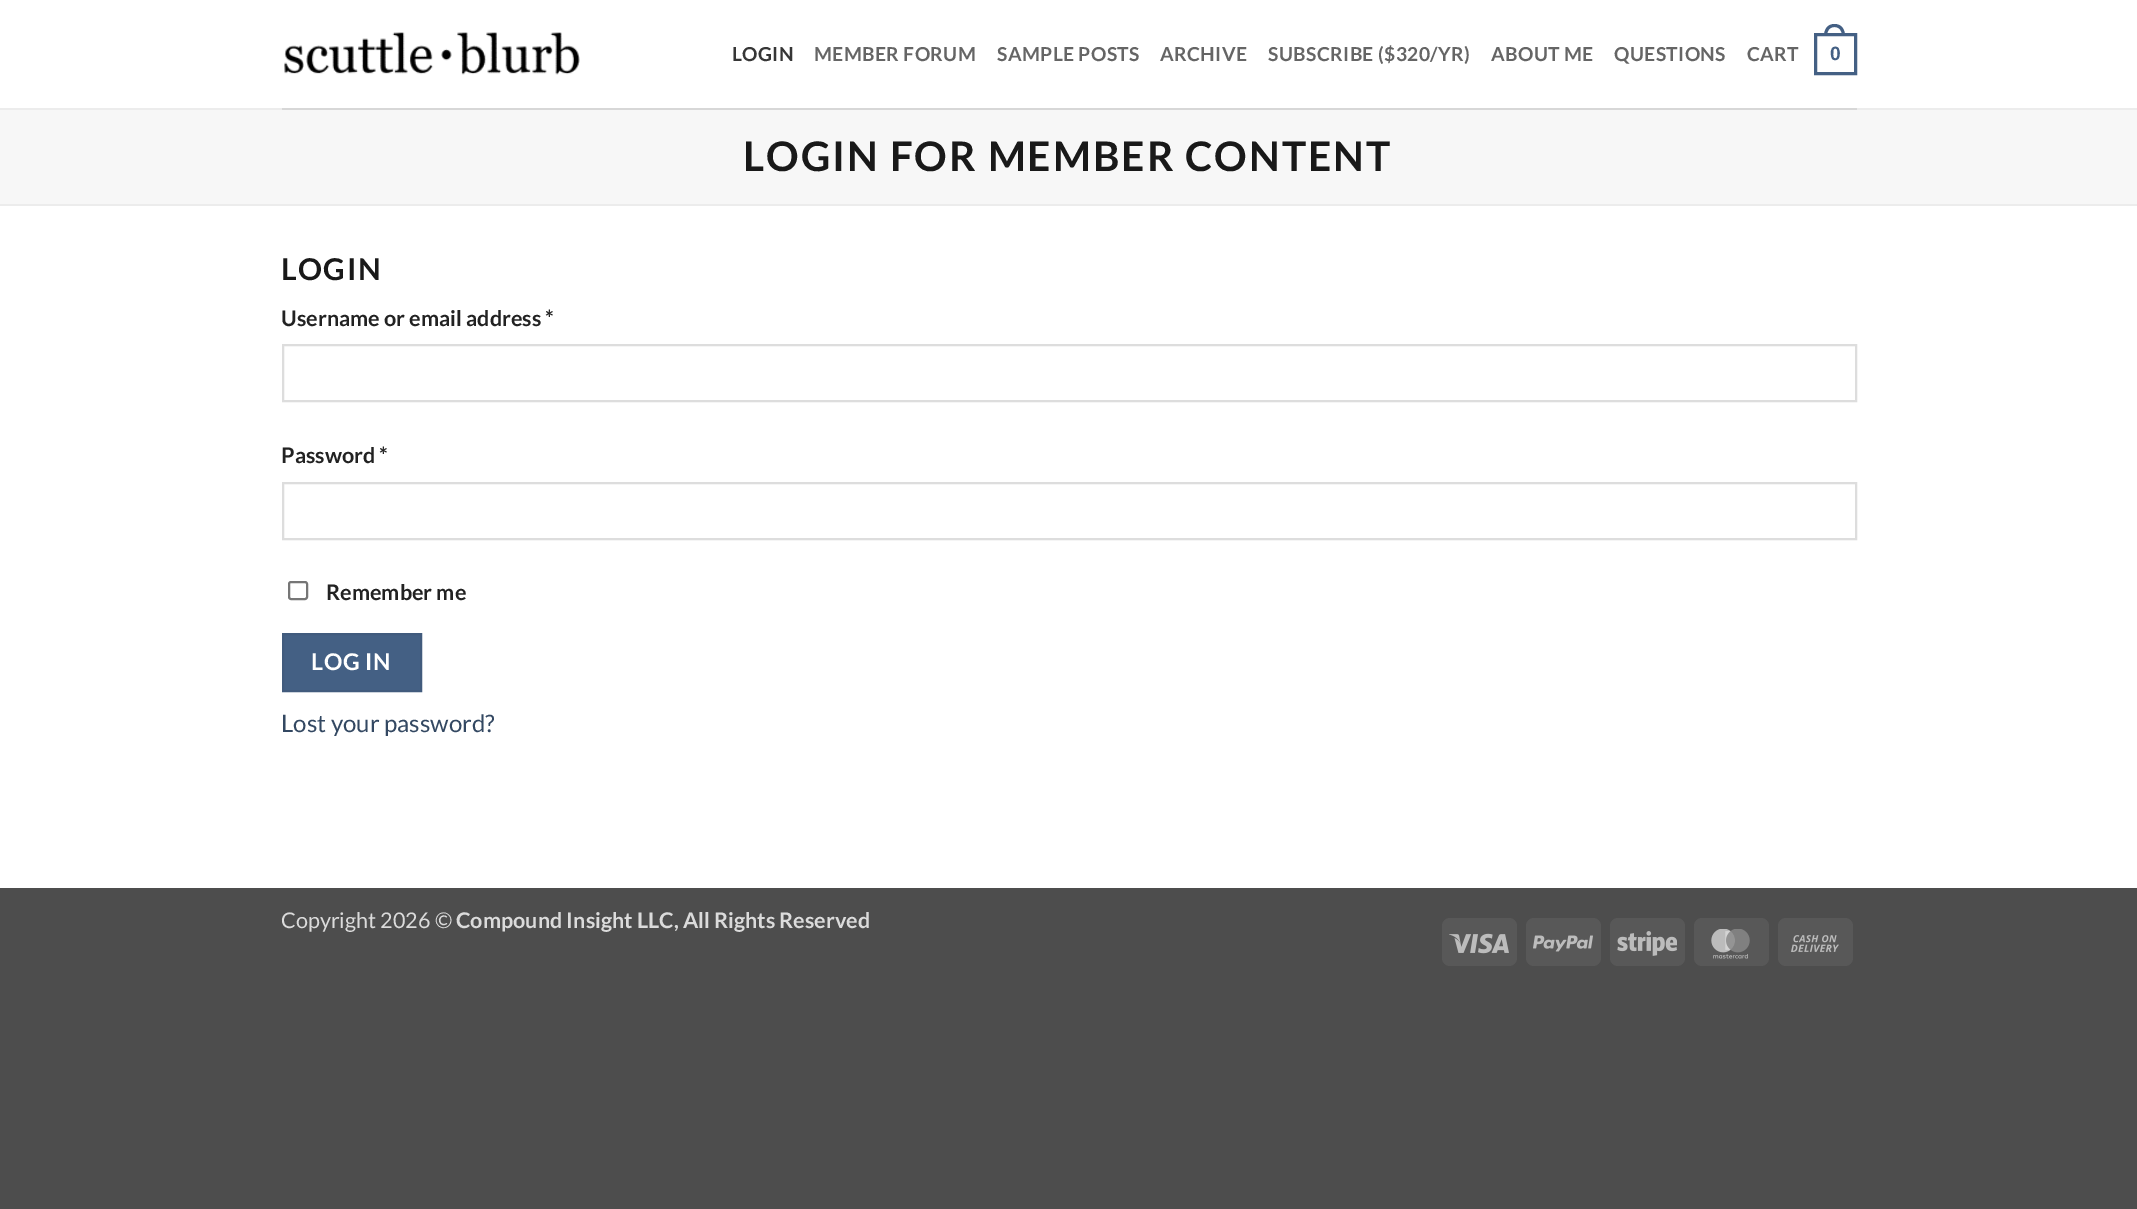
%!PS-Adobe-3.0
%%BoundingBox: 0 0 2137 1209
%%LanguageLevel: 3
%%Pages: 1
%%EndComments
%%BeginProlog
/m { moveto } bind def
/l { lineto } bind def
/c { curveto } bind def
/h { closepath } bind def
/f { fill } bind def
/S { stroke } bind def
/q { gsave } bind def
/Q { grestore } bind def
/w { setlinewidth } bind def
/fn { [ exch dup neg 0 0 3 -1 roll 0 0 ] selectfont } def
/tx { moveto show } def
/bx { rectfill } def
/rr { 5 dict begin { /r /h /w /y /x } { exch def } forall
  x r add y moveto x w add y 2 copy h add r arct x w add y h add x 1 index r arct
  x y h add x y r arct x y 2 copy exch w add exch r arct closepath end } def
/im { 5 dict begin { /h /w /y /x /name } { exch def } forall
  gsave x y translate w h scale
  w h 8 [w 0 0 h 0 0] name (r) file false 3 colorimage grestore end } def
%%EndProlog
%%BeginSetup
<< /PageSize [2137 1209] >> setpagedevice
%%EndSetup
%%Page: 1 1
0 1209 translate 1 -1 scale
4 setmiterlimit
0.302 setgray
0 0 2137 1209 bx
1 setgray
0 0 2137 888 bx
(image0.raw) 284 32 296 43 im
/Lato-Bold 19.25 fn
0.212 setgray
732 61 m 0.4 0 (LOGIN) ashow
0.396 setgray
814 61 m 0.4 0 (MEMBER FORUM) ashow
997 61 m 0.4 0 (SAMPLE POSTS) ashow
1160 61 m 0.4 0 (ARCHIVE) ashow
1268 61 m 0.4 0 (SUBSCRIBE \($320/YR\)) ashow
1491 61 m 0.4 0 (ABOUT ME) ashow
1614 61 m 0.4 0 (QUESTIONS) ashow
1747 61 m 0.4 0 (CART) ashow
0.267 0.376 0.518 setrgbcolor
3 w
1815.5 34.5 40 39 rectstroke
1834.5 24 m 1841.5 24 1845 29.5 1845 36 c 1824 36 l 1824 29.5 1827.5 24 1834.5 24 c h 1834.5 27 m 1840 27 1842 31.5 1842 36 c 1827 36 l 1827 31.5 1829 27 1834.5 27 c h eofill
/LiberationSans-Bold 19.25 fn
1830 60 m 0.4 0 (0) ashow
0.925 setgray
0 108 2137 2 bx
0.843 setgray
282 108 1575 2 bx
0.969 setgray
0 110 2137 94 bx
0.925 setgray
0 204 2137 2 bx
/Lato-Bold 40.75 fn
0.098 setgray
743 171 m 2 0 (LOGIN FOR MEMBER CONTENT) ashow
/Lato-Bold 30 fn
281 280 m 1.5 0 (LOGIN) ashow
/Lato-Bold 21.6 fn
0.133 setgray
(Username or email address *) 281 326 tx
0.867 setgray
2 w
283 345 1573 56 rectstroke
0.133 setgray
(Password *) 281 463 tx
0.867 setgray
283 483 1573 56 rectstroke
0.463 setgray
289 582 18 17 2 rr S
0.133 setgray
(Remember me) 326 600 tx
0.267 0.376 0.518 setrgbcolor
283 634 m 421 634 l 421 691 l 283 691 l h q f Q
0.255 0.357 0.49 setrgbcolor
S
/Lato-Bold 23 fn
1 setgray
311 670 m 0.75 0 (LOG IN) ashow
/Lato-Regular 24 fn
0.2 0.282 0.384 setrgbcolor
(Lost your password?) 281 732 tx
/Lato-Regular 21.6 fn
0.859 setgray
(Copyright 2026 ©) 281 928 tx
/Lato-Bold 21.6 fn
(Compound Insight LLC, All Rights Reserved) 456 928 tx
0.345 setgray
1442 918 75 48 8 rr f
(image1.raw) 1449 933 60 21 im
1526 918 75 48 8 rr f
(image2.raw) 1533 935 60 17 im
1610 918 75 48 8 rr f
(image3.raw) 1617 931 60 25 im
1694 918 75 48 8 rr f
(image4.raw) 1711 929 39 30 im
1778 918 75 48 8 rr f
(image5.raw) 1791 935 48 17 im
showpage
%%EOF
